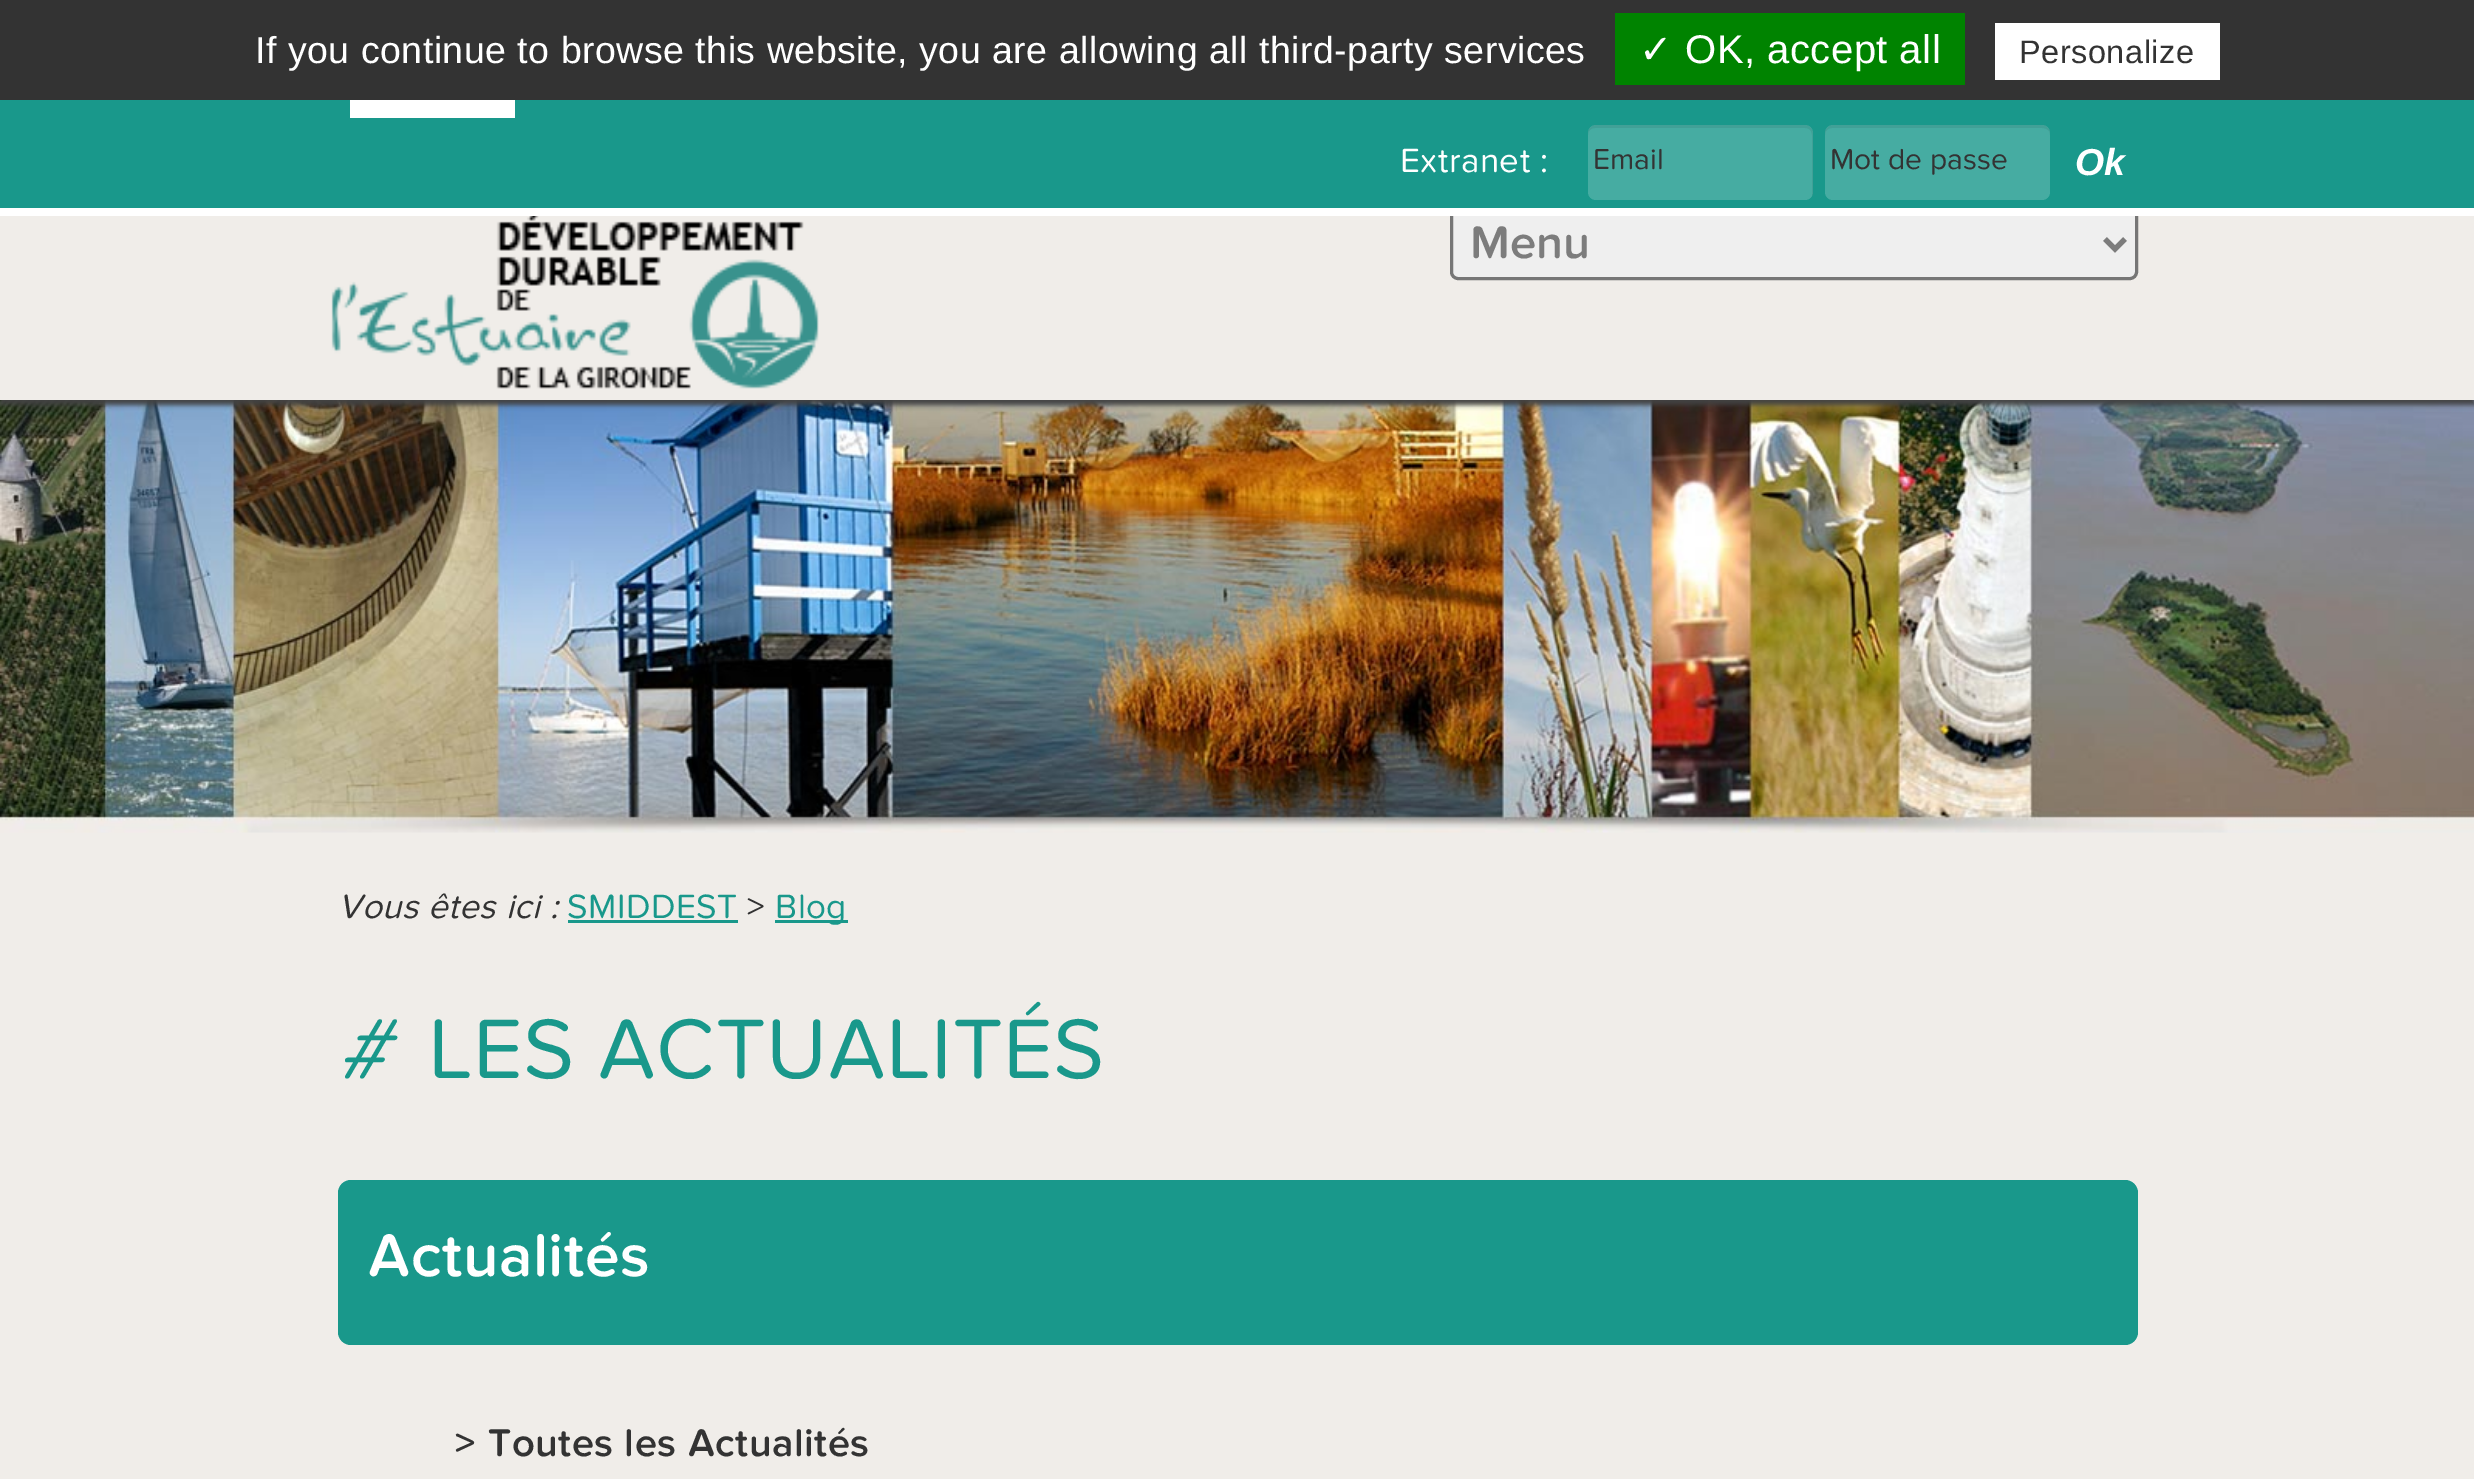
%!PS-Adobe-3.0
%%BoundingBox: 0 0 2474 1479
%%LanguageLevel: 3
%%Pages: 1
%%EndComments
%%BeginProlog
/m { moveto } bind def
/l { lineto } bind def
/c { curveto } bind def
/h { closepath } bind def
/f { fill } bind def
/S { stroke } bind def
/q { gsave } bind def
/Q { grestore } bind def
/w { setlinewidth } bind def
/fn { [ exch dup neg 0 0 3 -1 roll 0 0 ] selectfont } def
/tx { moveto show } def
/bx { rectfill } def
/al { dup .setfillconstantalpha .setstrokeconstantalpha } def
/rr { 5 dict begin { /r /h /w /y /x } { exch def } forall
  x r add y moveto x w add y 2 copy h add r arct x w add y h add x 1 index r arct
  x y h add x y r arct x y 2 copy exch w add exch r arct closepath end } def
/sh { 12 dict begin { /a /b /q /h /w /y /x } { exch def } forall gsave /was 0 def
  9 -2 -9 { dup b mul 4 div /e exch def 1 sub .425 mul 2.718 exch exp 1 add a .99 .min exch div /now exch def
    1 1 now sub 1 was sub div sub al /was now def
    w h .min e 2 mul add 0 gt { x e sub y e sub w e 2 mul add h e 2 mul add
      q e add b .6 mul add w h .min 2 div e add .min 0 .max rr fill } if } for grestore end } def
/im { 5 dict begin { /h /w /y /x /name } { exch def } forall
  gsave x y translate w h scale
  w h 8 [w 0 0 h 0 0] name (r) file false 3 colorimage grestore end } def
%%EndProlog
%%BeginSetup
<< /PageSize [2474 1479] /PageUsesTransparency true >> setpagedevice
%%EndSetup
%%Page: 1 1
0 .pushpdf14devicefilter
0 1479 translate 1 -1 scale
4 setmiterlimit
0.941 0.929 0.914 setrgbcolor
0 0 2474 1479 bx
(image1.raw) 0 400 2474 433 im
0.259 setgray
0 5 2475 400 0 2.5 1 sh
0.2 setgray
0 0 2474 100 bx
/LiberationSans-Regular 37.5 fn
1 setgray
255 63 m 0.5 0 (If you continue to browse this website, you are allowing all third-party services) ashow
0 0.514 0 setrgbcolor
1615 13 350 72 bx
/DejaVuSans-Regular 40 fn
1 setgray
1639 63 m 0.5 0 (✓) ashow
/LiberationSans-Regular 40 fn
1685 63 m 0.5 0 (OK, accept all) ashow
1995 23 225 57 bx
/LiberationSans-Regular 32.5 fn
0.2 setgray
2019 63 m 0.5 0 (Personalize) ashow
0.941 0.929 0.914 setrgbcolor
0 216 2474 184 bx
0.098 0.596 0.545 setrgbcolor
0 100 2474 108 bx
0.937 setgray
1451.5 209.5 685 69 6.5 rr q f Q
0.463 setgray
3 w
S
1 setgray
0 208 2474 8 bx
350 100 165 18 bx
/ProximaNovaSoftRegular-Regular 35 fn
1400 172 m 0.5 0 (Extranet :) ashow
0.275 0.675 0.635 setrgbcolor
1588 125 225 75 8 rr f
0.07 al
0 setgray
1595 128 m 1805 128 l 1814 128 1812 139 1812 145 c 1812 196 l 1813 195 1813 193 1813 192 c 1813 133 l 1813 129 1809 125 1805 125 c 1596 125 l 1592 125 1588 129 1588 133 c 1588 135 l 1588 131 1591 128 1595 128 c h f
/ProximaNovaSoftRegular-Regular 30 fn
1 al
0.2 setgray
(Email) 1593 169 tx
0.275 0.675 0.635 setrgbcolor
1825 125 225 75 8 rr f
0.07 al
0 setgray
1832 128 m 2042 128 l 2047 128 2050 131 2050 135 c 2050 133 l 2050 129 2046 125 2042 125 c 1833 125 l 1829 125 1825 129 1825 133 c 1825 135 l 1825 131 1828 128 1832 128 c h f
1 al
0.2 setgray
(Mot de passe) 1830 169 tx
/LiberationSans-BoldItalic 37.5 fn
1 setgray
(Ok) 2075 175 tx
(image0.raw) 331 216 488 173 im
0.486 setgray
5 w
2105 239 m 2115 249 l 2125 239 l S
/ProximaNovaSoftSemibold-SemiBold 47.5 fn
(Menu) 1470 258 tx
/ProximaNovaSoftRegular-Italic 35 fn
0.2 setgray
338 918 m 0.5 0 (Vous êtes ici :) ashow
/ProximaNovaSoftRegular-Regular 35 fn
0.098 0.596 0.545 setrgbcolor
567 918 m 0.5 0 (SMIDDEST) ashow
568 920 170 3 bx
0.2 setgray
747 918 m 0.5 0 (>) ashow
0.098 0.596 0.545 setrgbcolor
775 920 73 3 bx
775 918 m 0.5 0 (Blog) ashow
/ProximaNovaSoftRegular-Italic 87.5 fn
338 1078 m 0.5 0 (#) ashow
/ProximaNovaSoftRegular-Regular 87.5 fn
428 1078 m 0.5 0 (LES ACTUALITÉS) ashow
338 1180 1800 165 13 rr f
/ProximaNovaSoftSemibold-SemiBold 62.5 fn
1 setgray
368 1276 m 0.5 0 (Actualités) ashow
/ProximaNovaSoftSemibold-SemiBold 40 fn
0.2 setgray
455 1456 m 0.5 0 (>) ashow
488 1456 m 0.5 0 (Toutes les Actualités) ashow
.poppdf14devicefilter showpage
%%EOF
